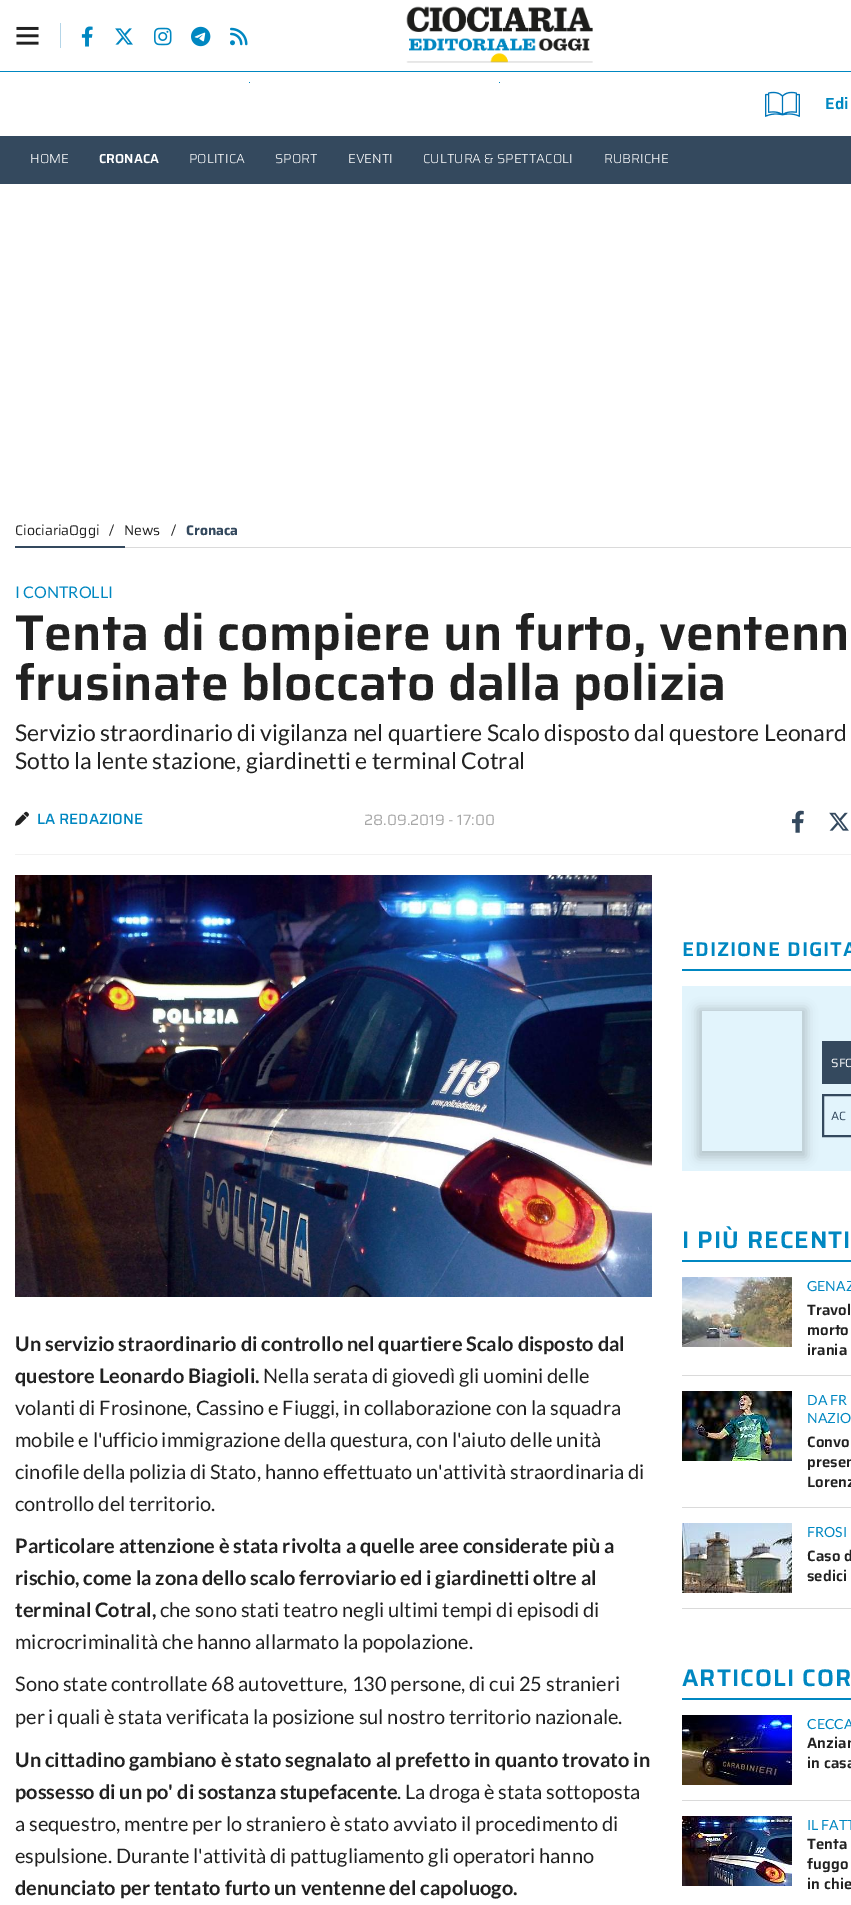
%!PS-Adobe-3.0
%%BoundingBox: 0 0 851 1905
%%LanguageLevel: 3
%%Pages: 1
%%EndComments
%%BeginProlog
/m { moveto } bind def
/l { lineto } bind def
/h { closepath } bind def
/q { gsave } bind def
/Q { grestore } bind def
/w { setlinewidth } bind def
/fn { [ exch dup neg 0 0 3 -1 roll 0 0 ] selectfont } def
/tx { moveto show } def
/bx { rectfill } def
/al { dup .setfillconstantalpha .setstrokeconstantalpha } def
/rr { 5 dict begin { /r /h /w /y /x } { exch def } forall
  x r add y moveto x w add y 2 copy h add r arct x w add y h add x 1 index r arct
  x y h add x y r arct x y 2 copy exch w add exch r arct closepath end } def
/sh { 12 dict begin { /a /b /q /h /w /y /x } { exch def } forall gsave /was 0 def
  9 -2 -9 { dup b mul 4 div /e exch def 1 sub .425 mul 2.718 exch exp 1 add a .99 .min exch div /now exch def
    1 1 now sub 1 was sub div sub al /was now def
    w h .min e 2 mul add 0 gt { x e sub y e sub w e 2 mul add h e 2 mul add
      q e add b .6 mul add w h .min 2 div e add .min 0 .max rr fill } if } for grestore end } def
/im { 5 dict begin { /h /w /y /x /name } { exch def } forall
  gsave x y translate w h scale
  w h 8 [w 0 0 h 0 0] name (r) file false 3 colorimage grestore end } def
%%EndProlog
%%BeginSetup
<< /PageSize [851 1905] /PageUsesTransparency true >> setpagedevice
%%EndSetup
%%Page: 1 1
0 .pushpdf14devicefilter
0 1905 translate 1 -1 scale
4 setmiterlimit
1 setgray
0 0 851 1905 bx
0 0.529 0.757 setrgbcolor
0 71 851 1 bx
0.706 0.835 0.91 setrgbcolor
60 23 1 25 bx
(image0.raw) 16 26 23 19 im
(image1.raw) 81 26 12 21 im
(image2.raw) 115 28 18 17 im
(image3.raw) 154 27 18 19 im
(image4.raw) 191 26 20 21 im
(image5.raw) 230 27 18 19 im
(image6.raw) 406 6 187 57 im
0 0.529 0.757 setrgbcolor
249 82 1 1 bx
499 82 1 1 bx
(image7.raw) 765 91 35 26 im
/Saira-SemiBold 16 fn
(Edi) 825 109 tx
0.204 0.286 0.369 setrgbcolor
0 136 851 48 bx
/Saira-Light 13 fn
1 setgray
(HOME) 30 163 tx
/Saira-SemiBold 13 fn
(CRONACA) 99 163 tx
/Saira-Light 13 fn
(POLITICA) 189 163 tx
(SPORT) 275 163 tx
(EVENTI) 348 163 tx
(CULTURA & SPETTACOLI) 423 163 tx
(RUBRICHE) 604 163 tx
0.855 setgray
125 547 726 1 bx
/Saira-Regular 14 fn
0.129 setgray
(CiociariaOggi) 15 535 tx
(/) 109 535 tx
(News) 124 535 tx
(/) 171 535 tx
/Saira-Bold 14 fn
0.204 0.286 0.369 setrgbcolor
(Cronaca) 186 535 tx
15 546 110 2 bx
/Lato-Regular 16 fn
0 0.529 0.757 setrgbcolor
(I CONTROLLI) 15 598 tx
/Saira-SemiBold 50 fn
0.129 setgray
(Tenta di compiere un furto, ventenn) 15 650 tx
(frusinate bloccato dalla polizia) 15 700 tx
/Lato-Regular 23 fn
(Servizio straordinario di vigilanza nel quartiere Scalo disposto dal questore Leonard) 15 741 tx
(Sotto la lente stazione, giardinetti e terminal Cotral) 15 769 tx
(image8.raw) 15 811 14 15 im
/Saira-Medium 15 fn
0 0.529 0.757 setrgbcolor
(LA REDAZIONE) 37 824 tx
/Saira-Regular 15 fn
0.655 setgray
(28.09.2019 - 17:00) 364 825 tx
(image9.raw) 792 810 12 23 im
(image10.raw) 829 812 20 19 im
0.945 setgray
15 854 836 1 bx
(image11.raw) 15 875 637 422 im
/Lato-Bold 20 fn
0.129 setgray
(Un servizio straordinario di controllo nel quartiere Scalo disposto dal) 15 1351 tx
(questore Leonardo Biagioli.) 15 1383 tx
/Lato-Regular 20 fn
(Nella serata di giovedì gli uomini delle) 263 1383 tx
(volanti di Frosinone, Cassino e Fiuggi, in collaborazione con la squadra) 15 1415 tx
(mobile e l'ufficio immigrazione della questura, con l'aiuto delle unità) 15 1447 tx
(cinofile della polizia di Stato, hanno effettuato un'attività straordinaria di) 15 1479 tx
(controllo del territorio.) 15 1511 tx
/Lato-Bold 20 fn
(Particolare attenzione è stata rivolta a quelle aree considerate più a) 15 1553 tx
(rischio, come la zona dello scalo ferroviario ed i giardinetti oltre al) 15 1585 tx
(terminal Cotral,) 15 1617 tx
/Lato-Regular 20 fn
(che sono stati teatro negli ultimi tempi di episodi di) 160 1617 tx
(microcriminalità che hanno allarmato la popolazione.) 15 1649 tx
(Sono state controllate 68 autovetture, 130 persone, di cui 25 stranieri) 15 1691 tx
(per i quali è stata verificata la posizione sul nostro territorio nazionale.) 15 1724 tx
/Lato-Bold 20 fn
(Un cittadino gambiano è stato segnalato al prefetto in quanto trovato in) 15 1767 tx
(possesso di un po' di sostanza stupefacente) 15 1799 tx
/Lato-Regular 20 fn
(. La droga è stata sottoposta) 397 1799 tx
(a sequestro, mentre per lo straniero è stato avviato il procedimento di) 15 1831 tx
(espulsione. Durante l'attività di pattugliamento gli operatori hanno) 15 1863 tx
/Lato-Bold 20 fn
(denunciato per tentato furto un ventenne del capoluogo.) 15 1895 tx
0 0.529 0.757 setrgbcolor
682 969 169 2 bx
/Saira-SemiBold 20 fn
682 956 m 1 0 (EDIZIONE DIGITA) ashow
0.886 0.957 0.988 setrgbcolor
682 986 169 185 bx
q
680 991 m 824 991 l 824 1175 l 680 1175 l h 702 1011 m 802 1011 l 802 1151 l 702 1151 l h eoclip newpath
0.008 setgray
698 1009 108 148 0 5.5 0.2 sh
Q
0.204 0.286 0.369 setrgbcolor
822 1041 29 43 bx
/Saira-Regular 12 fn
1 setgray
(SFO) 831 1067 tx
0.204 0.286 0.369 setrgbcolor
2 w
823 1095 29 41 rectstroke
(AC) 831 1120 tx
0 0.529 0.757 setrgbcolor
682 1260 169 2 bx
/Saira-SemiBold 24 fn
682 1248 m 1 0 (I PIÙ RECENTI) ashow
0.855 setgray
682 1375 169 1 bx
(image12.raw) 682 1277 110 70 im
/Lato-Regular 14 fn
0 0.529 0.757 setrgbcolor
(GENAZ) 807 1291 tx
/Saira-SemiBold 15 fn
0.129 setgray
(Travol) 807 1315 tx
(morto) 807 1335 tx
(irania) 807 1355 tx
0.855 setgray
682 1507 169 1 bx
(image13.raw) 682 1391 110 70 im
/Lato-Regular 14 fn
0 0.529 0.757 setrgbcolor
(DA FR) 807 1405 tx
(NAZIO) 807 1423 tx
/Saira-SemiBold 15 fn
0.129 setgray
(Convo) 807 1447 tx
(presen) 807 1467 tx
(Lorenz) 807 1487 tx
0.855 setgray
682 1608 169 1 bx
(image14.raw) 682 1523 110 70 im
/Lato-Regular 14 fn
0 0.529 0.757 setrgbcolor
(FROSI) 807 1537 tx
/Saira-SemiBold 15 fn
0.129 setgray
(Caso d) 807 1561 tx
(sedici) 807 1581 tx
0 0.529 0.757 setrgbcolor
682 1698 169 2 bx
/Saira-SemiBold 24 fn
682 1686 m 1 0 (ARTICOLI COR) ashow
0.855 setgray
682 1800 169 1 bx
(image15.raw) 682 1715 110 70 im
/Lato-Regular 14 fn
0 0.529 0.757 setrgbcolor
(CECCA) 807 1729 tx
/Saira-SemiBold 15 fn
0.129 setgray
(Anzian) 807 1748 tx
(in casa) 807 1768 tx
(image16.raw) 682 1816 110 70 im
/Lato-Regular 14 fn
0 0.529 0.757 setrgbcolor
(IL FATT) 807 1830 tx
/Saira-SemiBold 15 fn
0.129 setgray
(Tenta) 807 1849 tx
(fuggo) 807 1869 tx
(in chie) 807 1889 tx
.poppdf14devicefilter showpage
%%EOF
